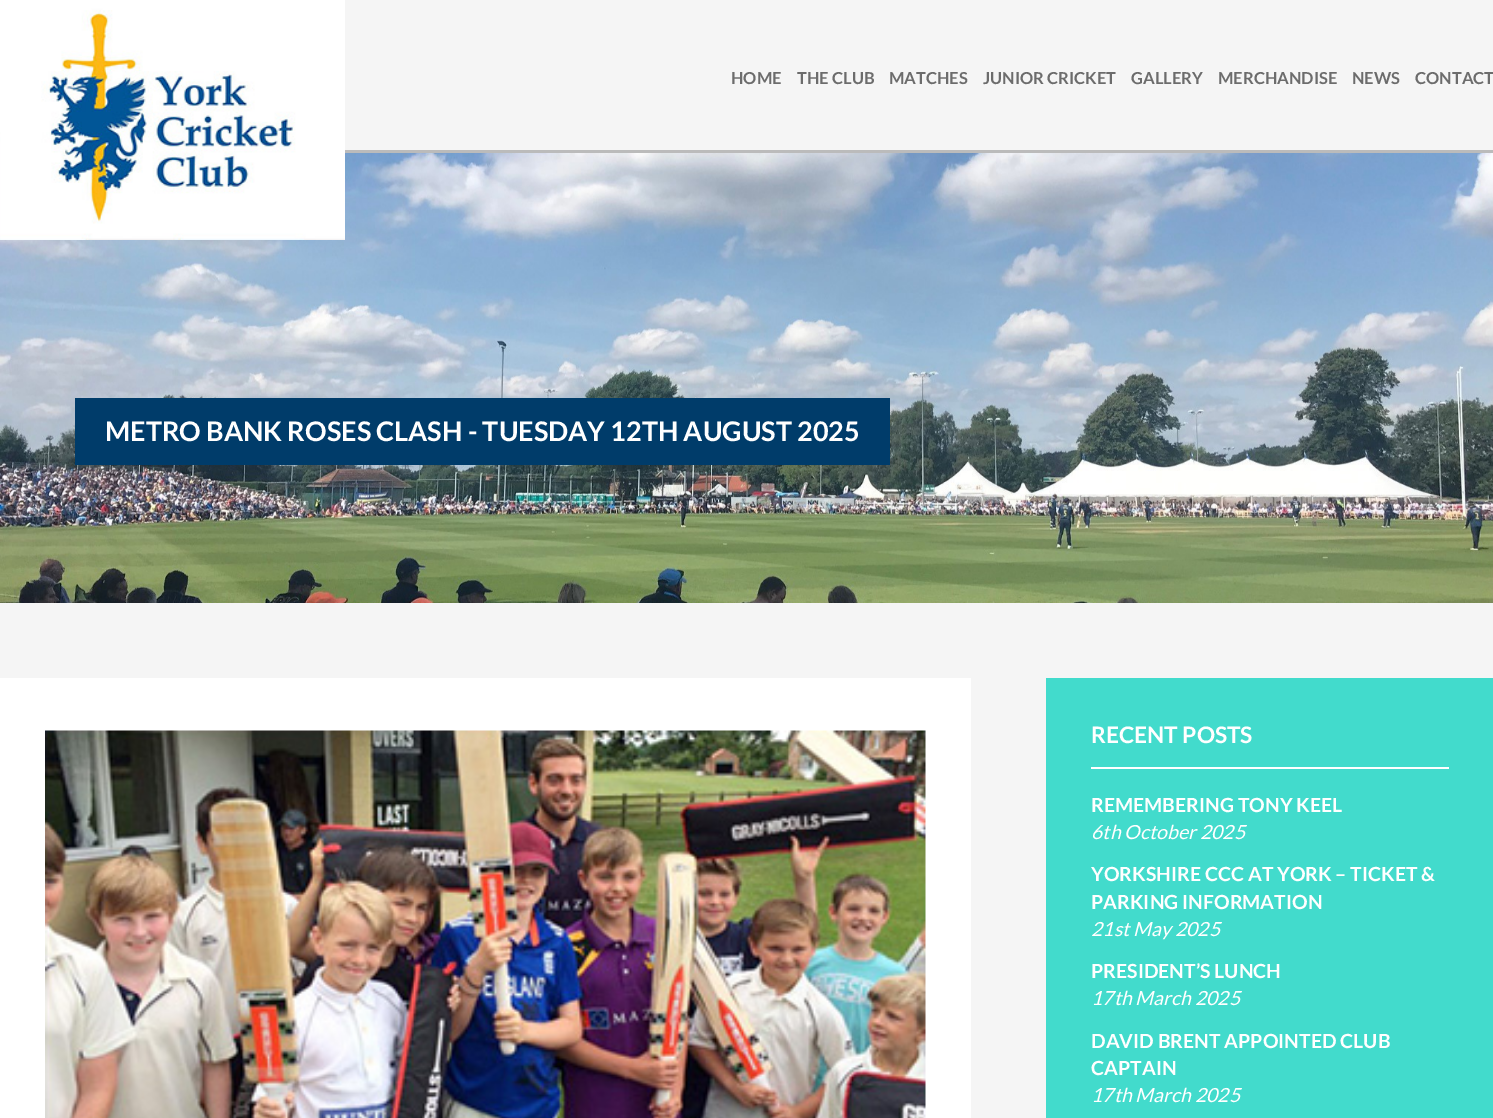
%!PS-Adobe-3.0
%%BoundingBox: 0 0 1493 1118
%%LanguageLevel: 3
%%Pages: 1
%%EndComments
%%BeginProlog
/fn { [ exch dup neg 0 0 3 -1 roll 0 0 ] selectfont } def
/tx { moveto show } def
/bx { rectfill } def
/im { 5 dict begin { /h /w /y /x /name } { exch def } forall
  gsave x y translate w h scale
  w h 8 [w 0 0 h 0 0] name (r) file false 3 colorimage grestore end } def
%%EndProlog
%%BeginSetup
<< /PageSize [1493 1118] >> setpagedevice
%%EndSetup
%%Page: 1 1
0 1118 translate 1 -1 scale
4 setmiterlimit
0.961 setgray
0 0 1493 1118 bx
0.733 setgray
345 150 1148 3 bx
(image1.raw) 0 153 1493 450 im
(image0.raw) 0 0 345 240 im
/Lato-Bold 16.5 fn
0.424 setgray
(HOME) 731 84 tx
(THE CLUB) 797 84 tx
(MATCHES) 889 84 tx
(JUNIOR CRICKET) 983 84 tx
(GALLERY) 1131 84 tx
(MERCHANDISE) 1218 84 tx
(NEWS) 1352 84 tx
(CONTACT) 1415 84 tx
0 0.235 0.416 setrgbcolor
75 398 815 67 bx
/Lato-Bold 27 fn
1 setgray
(METRO BANK ROSES CLASH - TUESDAY 12TH AUGUST 2025) 105 441 tx
0 678 971 440 bx
(image2.raw) 45 730 881 388 im
0.259 0.859 0.8 setrgbcolor
1046 678 447 440 bx
1 setgray
1091 767 358 2 bx
/Lato-Bold 22.75 fn
(RECENT POSTS) 1091 743 tx
/Lato-Bold 19.5 fn
(REMEMBERING TONY KEEL) 1091 812 tx
/Lato-Italic 19.5 fn
(6th October 2025) 1091 839 tx
/Lato-Bold 19.5 fn
(YORKSHIRE CCC AT YORK – TICKET &) 1091 881 tx
(PARKING INFORMATION) 1091 909 tx
/Lato-Italic 19.5 fn
(21st May 2025) 1091 936 tx
/Lato-Bold 19.5 fn
(PRESIDENT’S LUNCH) 1091 978 tx
/Lato-Italic 19.5 fn
(17th March 2025) 1091 1005 tx
/Lato-Bold 19.5 fn
(DAVID BRENT APPOINTED CLUB) 1091 1048 tx
(CAPTAIN) 1091 1075 tx
/Lato-Italic 19.5 fn
(17th March 2025) 1091 1102 tx
showpage
%%EOF
